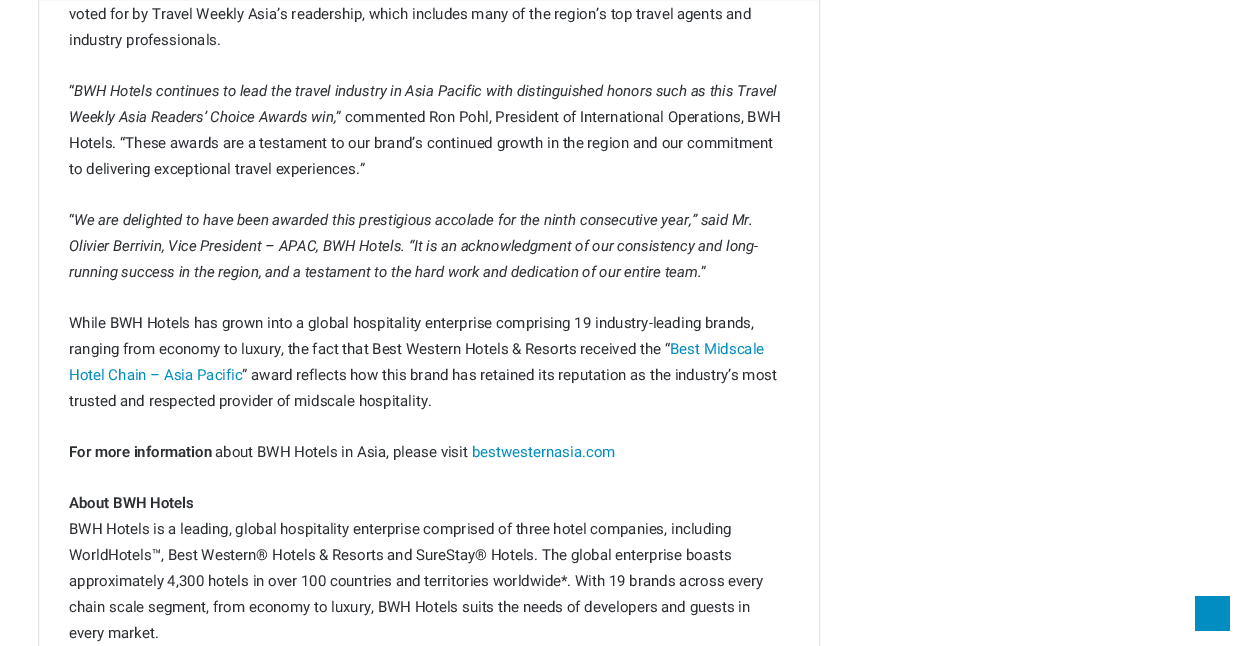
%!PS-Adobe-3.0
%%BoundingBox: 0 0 1245 646
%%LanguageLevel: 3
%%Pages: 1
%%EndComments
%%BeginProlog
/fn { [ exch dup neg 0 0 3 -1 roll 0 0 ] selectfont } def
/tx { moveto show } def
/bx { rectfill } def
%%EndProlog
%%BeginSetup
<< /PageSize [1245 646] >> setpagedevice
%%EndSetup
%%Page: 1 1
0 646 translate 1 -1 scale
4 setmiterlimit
1 setgray
0 0 1245 646 bx
0.902 setgray
38.5 -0.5 781 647 rectstroke
/Roboto-Regular 15 fn
0.173 0.184 0.204 setrgbcolor
(voted for by Travel Weekly Asia’s readership, which includes many of the region’s top travel agents and) 69 19 tx
(industry professionals.) 69 45 tx
(“) 69 96 tx
/Roboto-Italic 15 fn
(BWH Hotels continues to lead the travel industry in Asia Pacific with distinguished honors such as this Travel) 74 96 tx
(Weekly Asia Readers’ Choice Awards win,) 69 122 tx
/Roboto-Regular 15 fn
(” commented Ron Pohl, President of International Operations, BWH) 336 122 tx
(Hotels. “These awards are a testament to our brand’s continued growth in the region and our commitment) 69 148 tx
(to delivering exceptional travel experiences.”) 69 174 tx
(“) 69 225 tx
/Roboto-Italic 15 fn
(We are delighted to have been awarded this prestigious accolade for the ninth consecutive year,” said Mr.) 74 225 tx
(Olivier Berrivin, Vice President – APAC, BWH Hotels. “It is an acknowledgment of our consistency and long-) 69 251 tx
(running success in the region, and a testament to the hard work and dedication of our entire team.) 69 277 tx
/Roboto-Regular 15 fn
(”) 701 277 tx
(While BWH Hotels has grown into a global hospitality enterprise comprising 19 industry-leading brands,) 69 328 tx
(ranging from economy to luxury, the fact that Best Western Hotels & Resorts received the “) 69 354 tx
0.008 0.553 0.753 setrgbcolor
(Best Midscale) 670 354 tx
(Hotel Chain – Asia Pacific) 69 380 tx
0.173 0.184 0.204 setrgbcolor
(” award reflects how this brand has retained its reputation as the industry’s most) 242 380 tx
(trusted and respected provider of midscale hospitality.) 69 406 tx
/Roboto-SemiBold 15 fn
(For more information) 69 457 tx
/Roboto-Regular 15 fn
(about BWH Hotels in Asia, please visit) 215 457 tx
0.008 0.553 0.753 setrgbcolor
(bestwesternasia.com) 472 457 tx
/Roboto-SemiBold 15 fn
0.173 0.184 0.204 setrgbcolor
(About BWH Hotels) 69 508 tx
/Roboto-Regular 15 fn
(BWH Hotels is a leading, global hospitality enterprise comprised of three hotel companies, including) 69 534 tx
(WorldHotels™, Best Western® Hotels & Resorts and SureStay® Hotels. The global enterprise boasts) 69 560 tx
(approximately 4,300 hotels in over 100 countries and territories worldwide*. With 19 brands across every) 69 586 tx
(chain scale segment, from economy to luxury, BWH Hotels suits the needs of developers and guests in) 69 612 tx
(every market.) 69 638 tx
0.008 0.553 0.753 setrgbcolor
1195 596 35 35 bx
showpage
%%EOF
